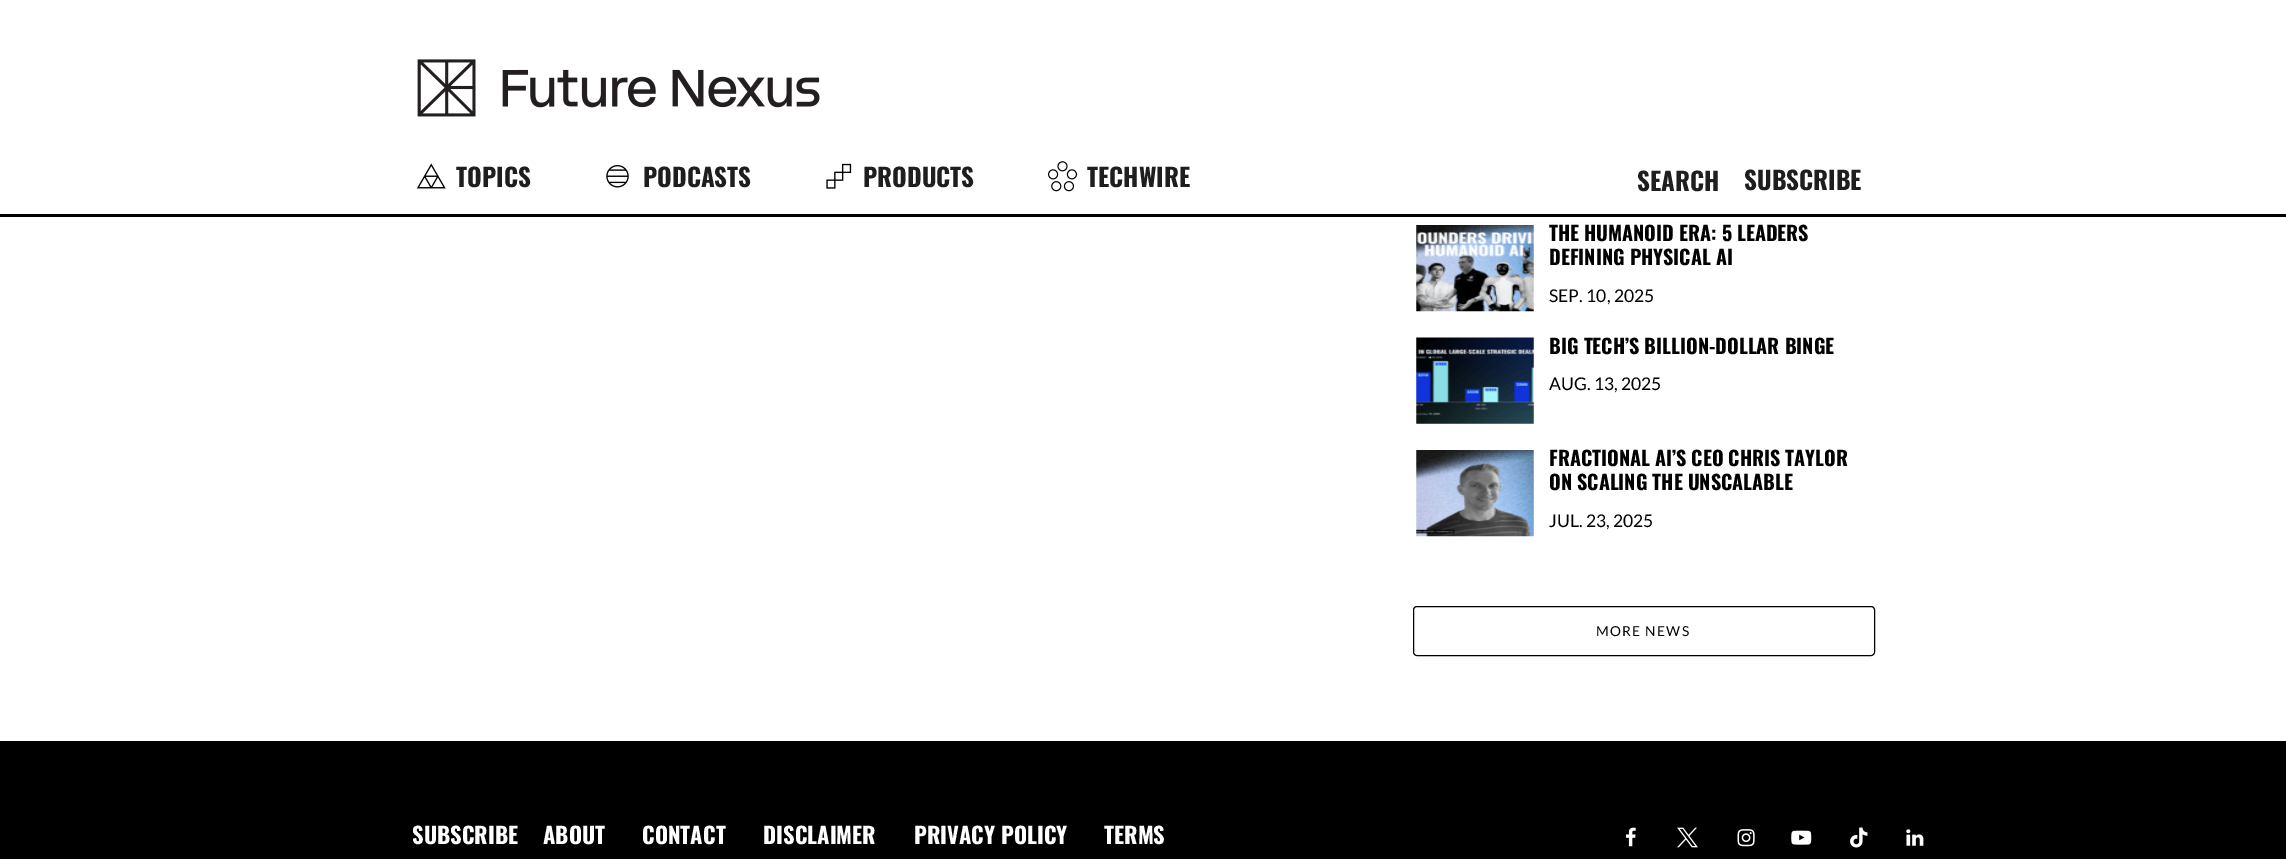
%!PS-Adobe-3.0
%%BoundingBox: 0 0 2286 859
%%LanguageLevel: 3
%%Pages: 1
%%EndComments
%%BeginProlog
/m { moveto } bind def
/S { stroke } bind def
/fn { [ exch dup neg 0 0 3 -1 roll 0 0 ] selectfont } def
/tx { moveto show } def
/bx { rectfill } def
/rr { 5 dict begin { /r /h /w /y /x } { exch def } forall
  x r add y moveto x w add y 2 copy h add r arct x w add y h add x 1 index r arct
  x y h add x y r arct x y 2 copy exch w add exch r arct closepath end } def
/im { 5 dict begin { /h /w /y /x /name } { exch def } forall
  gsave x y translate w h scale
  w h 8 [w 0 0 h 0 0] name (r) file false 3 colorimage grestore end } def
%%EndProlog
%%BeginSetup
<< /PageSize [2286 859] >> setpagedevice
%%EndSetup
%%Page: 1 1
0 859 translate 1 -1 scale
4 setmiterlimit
1 setgray
0 0 2286 859 bx
0 setgray
0 214 2286 3 bx
(image0.raw) 417 59 403 58 im
(image1.raw) 416 163 30 26 im
/Oswald-Bold 25 fn
0.118 setgray
(TOPICS) 456 187 tx
(image2.raw) 606 165 23 23 im
(PODCASTS) 643 187 tx
(image3.raw) 826 163 26 26 im
(PRODUCTS) 863 187 tx
(image4.raw) 1048 161 29 31 im
(TECHWIRE) 1087 187 tx
(SEARCH) 1637 191 tx
(SUBSCRIBE) 1744 190 tx
(image5.raw) 1416 225 118 87 im
/Oswald-Bold 20 fn
0 setgray
(THE HUMANOID ERA: 5 LEADERS) 1549 241 tx
(DEFINING PHYSICAL AI) 1549 265 tx
/Lato-Regular 17.5 fn
(SEP. 10, 2025) 1549 302 tx
(image6.raw) 1416 337 118 87 im
/Oswald-Bold 20 fn
(BIG TECH’S BILLION-DOLLAR BINGE) 1549 354 tx
/Lato-Regular 17.5 fn
(AUG. 13, 2025) 1549 390 tx
(image7.raw) 1416 450 118 87 im
/Oswald-Bold 20 fn
(FRACTIONAL AI’S CEO CHRIS TAYLOR) 1549 466 tx
(ON SCALING THE UNSCALABLE) 1549 490 tx
/Lato-Regular 17.5 fn
(JUL. 23, 2025) 1549 527 tx
1413.5 606.5 461 49 3.5 rr S
/Lato-Regular 13.75 fn
1596 636 m 1.25 0 (MORE NEWS) ashow
0 741 2286 118 bx
/Oswald-Bold 22.5 fn
1 setgray
(SUBSCRIBE) 412 844 tx
(ABOUT) 543 844 tx
(CONTACT) 642 844 tx
(DISCLAIMER) 763 844 tx
(PRIVACY POLICY) 914 844 tx
(TERMS) 1104 844 tx
(image8.raw) 1626 827 10 20 im
(image9.raw) 1677 827 21 21 im
(image10.raw) 1737 829 18 18 im
(image11.raw) 1791 830 21 15 im
(image12.raw) 1850 827 18 21 im
(image13.raw) 1906 829 18 17 im
showpage
%%EOF
